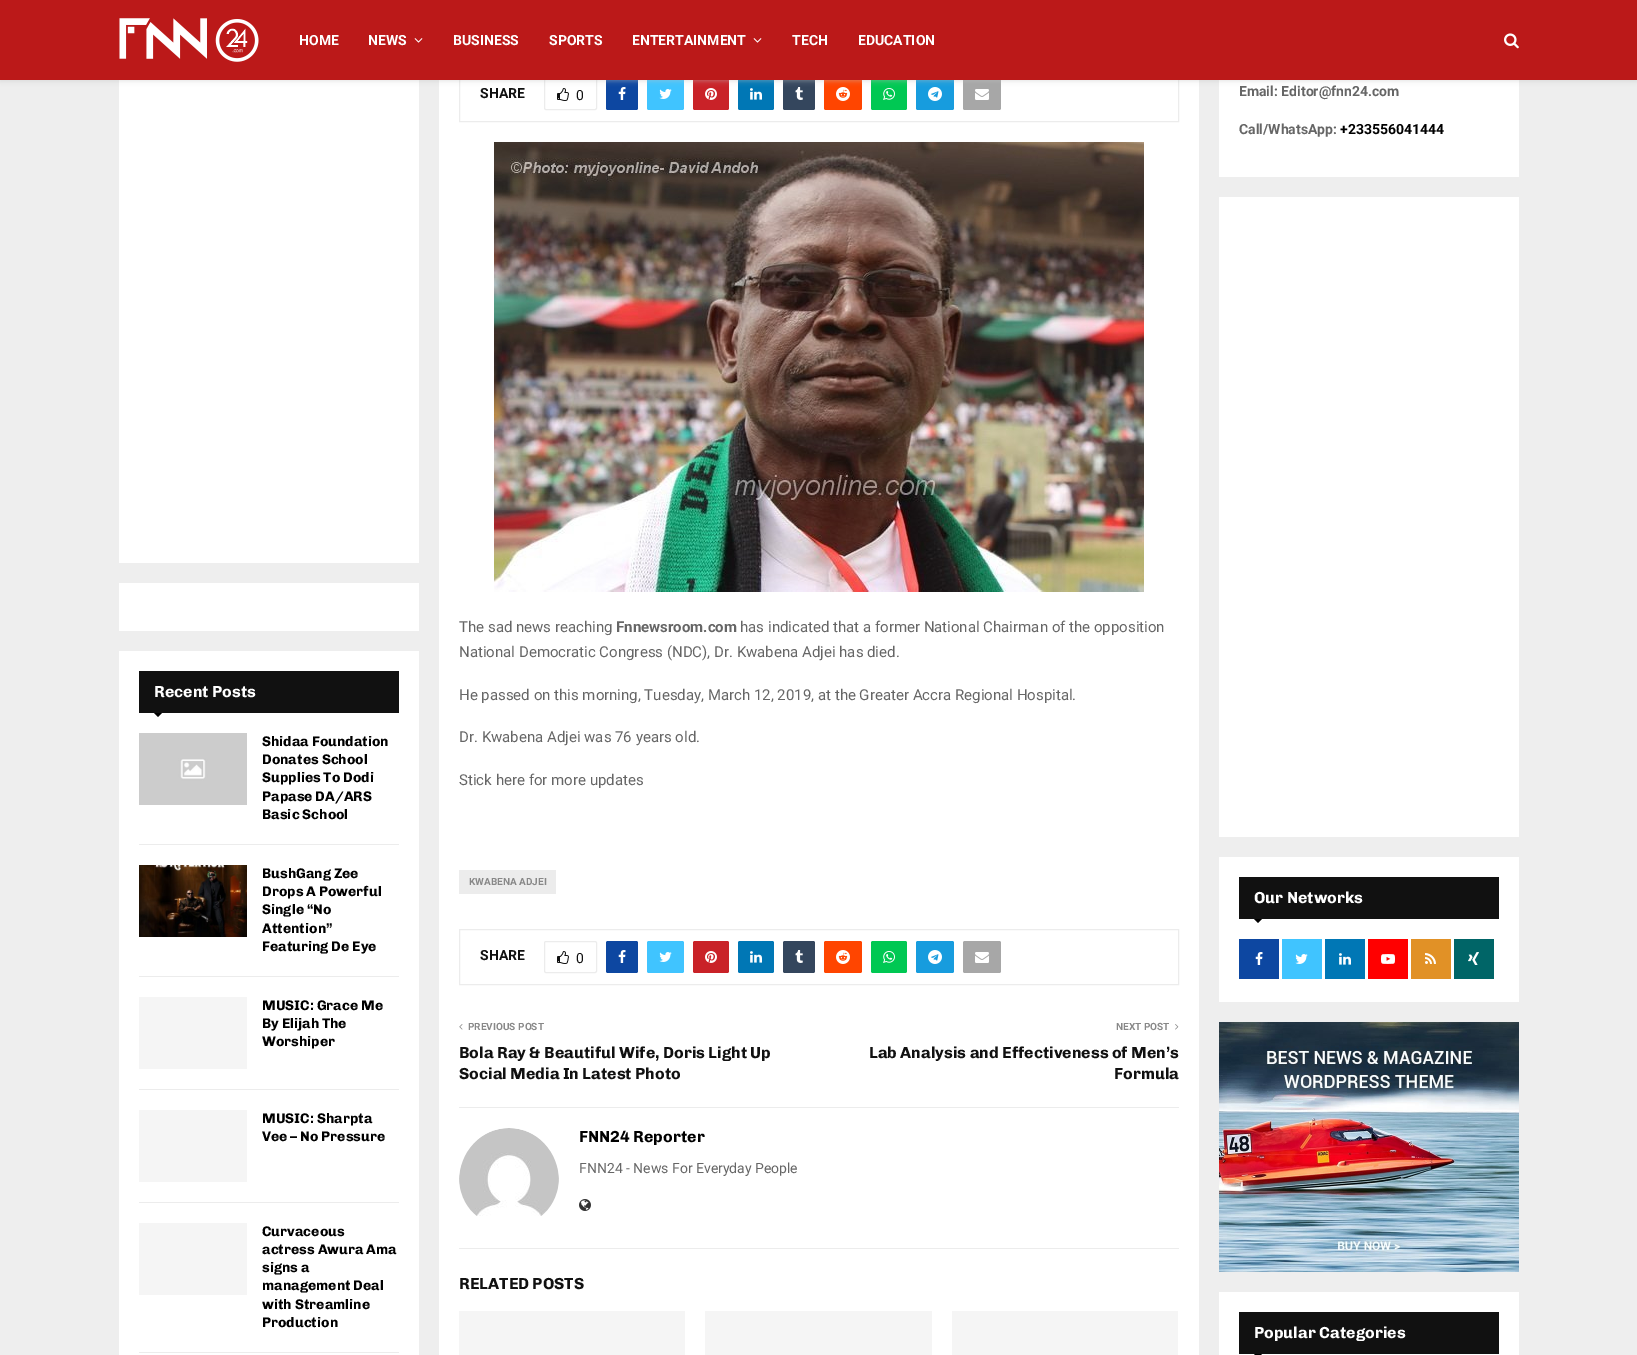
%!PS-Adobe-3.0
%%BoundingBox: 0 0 1637 1355
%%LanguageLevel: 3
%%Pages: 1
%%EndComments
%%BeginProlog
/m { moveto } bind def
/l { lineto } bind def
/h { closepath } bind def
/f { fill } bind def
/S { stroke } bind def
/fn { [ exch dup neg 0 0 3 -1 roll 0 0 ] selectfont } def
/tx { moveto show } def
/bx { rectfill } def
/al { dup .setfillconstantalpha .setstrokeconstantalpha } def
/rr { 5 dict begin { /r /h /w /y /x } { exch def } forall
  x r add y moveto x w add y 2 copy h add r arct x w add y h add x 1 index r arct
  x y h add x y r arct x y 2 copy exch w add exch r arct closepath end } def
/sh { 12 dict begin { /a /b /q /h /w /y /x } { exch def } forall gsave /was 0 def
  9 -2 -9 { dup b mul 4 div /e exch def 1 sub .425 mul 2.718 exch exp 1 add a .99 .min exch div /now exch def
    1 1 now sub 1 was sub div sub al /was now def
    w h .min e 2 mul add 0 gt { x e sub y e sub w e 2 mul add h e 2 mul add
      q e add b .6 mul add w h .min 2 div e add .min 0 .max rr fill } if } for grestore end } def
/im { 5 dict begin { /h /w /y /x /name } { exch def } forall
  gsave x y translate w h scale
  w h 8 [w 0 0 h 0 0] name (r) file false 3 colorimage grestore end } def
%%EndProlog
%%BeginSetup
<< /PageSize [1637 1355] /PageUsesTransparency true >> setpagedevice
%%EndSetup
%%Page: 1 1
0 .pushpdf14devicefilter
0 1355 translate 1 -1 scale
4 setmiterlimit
0.933 setgray
0 0 1637 1355 bx
1 setgray
119 80 300 483 bx
439 80 760 1275 bx
0.925 setgray
459.5 66.5 719 55 rectstroke
544.5 78.5 52 31 1.5 rr S
(image5.raw) 557 88 12 13 im
0.051 0.278 0.631 setrgbcolor
606 78 32 32 2 rr f
(image6.raw) 618 87 8 13 im
0.251 0.769 1 setrgbcolor
647 78 37 32 2 rr f
(image7.raw) 659 89 13 10 im
0.788 0.133 0.157 setrgbcolor
693 78 36 32 2 rr f
(image8.raw) 705 88 12 12 im
0 0.467 0.71 setrgbcolor
738 78 36 32 2 rr f
(image9.raw) 750 88 12 12 im
0.204 0.275 0.365 setrgbcolor
783 78 32 32 2 rr f
(image10.raw) 795 87 8 13 im
1 0.271 0 setrgbcolor
824 78 38 32 2 rr f
(image11.raw) 836 87 14 14 im
0 0.784 0.325 setrgbcolor
871 78 36 32 2 rr f
(image12.raw) 883 88 12 12 im
0.09 0.612 0.871 setrgbcolor
916 78 38 32 2 rr f
(image13.raw) 928 87 14 14 im
0.655 setgray
963 78 38 32 2 rr f
(image14.raw) 975 89 14 11 im
1 setgray
1219 80 300 97 bx
0.745 setgray
0 1 1637 80 0 2.5 0.46 sh
0.733 0.098 0.098 setrgbcolor
0 0 1637 80 bx
(image0.raw) 119 18 140 44 im
/Roboto-Bold 14 fn
1 setgray
(HOME) 299 45 tx
(NEWS) 368 45 tx
(image1.raw) 414 38 9 5 im
(BUSINESS) 453 45 tx
(SPORTS) 549 45 tx
(ENTERTAINMENT) 632 45 tx
(image1.raw) 753 38 9 5 im
(TECH) 792 45 tx
(EDUCATION) 858 45 tx
(image2.raw) 1504 33 15 16 im
119 583 300 48 bx
119 651 300 704 bx
0.067 setgray
139 671 260 42 bx
/Chivo-Bold 16 fn
1 setgray
(Recent Posts) 154 697 tx
0 setgray
154 713 m 162 713 l 158 717 l h f
0.925 setgray
139 844 260 1 bx
(image3.raw) 139 733 108 72 im
/Chivo-Bold 14 fn
0 setgray
(Shidaa Foundation) 262 746 tx
(Donates School) 262 764 tx
(Supplies To Dodi) 262 782 tx
(Papase DA/ARS) 262 801 tx
(Basic School) 262 819 tx
0.925 setgray
139 976 260 1 bx
(image4.raw) 139 865 108 72 im
0 setgray
(BushGang Zee) 262 878 tx
(Drops A Powerful) 262 896 tx
(Single “No) 262 914 tx
(Attention”) 262 933 tx
(Featuring De Eye) 262 951 tx
0.925 setgray
139 1089 260 1 bx
0.961 setgray
139 997 108 72 bx
0 setgray
(MUSIC: Grace Me) 262 1010 tx
(By Elijah The) 262 1028 tx
(Worshiper) 262 1046 tx
0.925 setgray
139 1202 260 1 bx
0.961 setgray
139 1110 108 72 bx
0 setgray
(MUSIC: Sharpta) 262 1123 tx
(Vee – No Pressure) 262 1141 tx
0.925 setgray
139 1352 260 1 bx
0.961 setgray
139 1223 108 72 bx
0 setgray
(Curvaceous) 262 1236 tx
(actress Awura Ama) 262 1254 tx
(signs a) 262 1272 tx
(management Deal) 262 1290 tx
(with Streamline) 262 1309 tx
(Production) 262 1327 tx
/Roboto-Bold 14 fn
0.067 setgray
(SHARE) 480 98 tx
/Roboto-Regular 14 fn
(0) 576 100 tx
(image15.raw) 494 142 650 450 im
/Roboto-Regular 15 fn
0.4 setgray
(The sad news reaching) 459 632 tx
/Roboto-Bold 15 fn
(Fnnewsroom.com) 616 632 tx
/Roboto-Regular 15 fn
(has indicated that a former National Chairman of the opposition) 740 632 tx
(National Democratic Congress \(NDC\), Dr. Kwabena Adjei has died.) 459 657 tx
(He passed on this morning, Tuesday, March 12, 2019, at the Greater Accra Regional Hospital.) 459 700 tx
(Dr. Kwabena Adjei was 76 years old.) 459 742 tx
(Stick here for more updates) 459 785 tx
0.925 setgray
459 870 97 24 bx
/Roboto-Bold 10 fn
0.533 setgray
(KWABENA ADJEI) 469 885 tx
0.925 setgray
459.5 929.5 719 55 rectstroke
/Roboto-Bold 14 fn
0.067 setgray
(SHARE) 480 960 tx
0.925 setgray
544.5 941.5 52 31 1.5 rr S
(image5.raw) 557 951 12 13 im
/Roboto-Regular 14 fn
0.067 setgray
(0) 576 963 tx
0.051 0.278 0.631 setrgbcolor
606 941 32 32 2 rr f
(image6.raw) 618 950 8 13 im
0.251 0.769 1 setrgbcolor
647 941 37 32 2 rr f
(image7.raw) 659 952 13 10 im
0.788 0.133 0.157 setrgbcolor
693 941 36 32 2 rr f
(image8.raw) 705 951 12 12 im
0 0.467 0.71 setrgbcolor
738 941 36 32 2 rr f
(image9.raw) 750 951 12 12 im
0.204 0.275 0.365 setrgbcolor
783 941 32 32 2 rr f
(image10.raw) 795 950 8 13 im
1 0.271 0 setrgbcolor
824 941 38 32 2 rr f
(image11.raw) 836 950 14 14 im
0 0.784 0.325 setrgbcolor
871 941 36 32 2 rr f
(image12.raw) 883 951 12 12 im
0.09 0.612 0.871 setrgbcolor
916 941 38 32 2 rr f
(image13.raw) 928 950 14 14 im
0.655 setgray
963 941 38 32 2 rr f
(image14.raw) 975 952 14 11 im
0.925 setgray
459 1107 720 1 bx
(image16.raw) 459 1024 4 6 im
/Roboto-Bold 10 fn
0.533 setgray
(PREVIOUS POST) 468 1030 tx
/Chivo-Bold 16 fn
0.067 setgray
(Bola Ray & Beautiful Wife, Doris Light Up) 459 1058 tx
(Social Media In Latest Photo) 459 1079 tx
/Roboto-Bold 10 fn
0.533 setgray
(NEXT POST) 1116 1030 tx
(image17.raw) 1175 1024 4 6 im
/Chivo-Bold 16 fn
0.067 setgray
(Lab Analysis and Effectiveness of Men’s) 869 1058 tx
(Formula) 1114 1079 tx
0.925 setgray
459 1248 720 1 bx
(image18.raw) 459 1128 100 88 im
0 setgray
(FNN24 Reporter) 579 1142 tx
/Roboto-Regular 14 fn
0.4 setgray
(FNN24 - News For Everyday People) 579 1173 tx
(image19.raw) 579 1199 12 12 im
/Chivo-Bold 16 fn
0.067 setgray
(RELATED POSTS) 459 1289 tx
0.961 setgray
459 1311 226 44 bx
705 1311 227 44 bx
952 1311 226 44 bx
/Roboto-Bold 14 fn
0.4 setgray
(Email: Editor@fnn24.com) 1239 96 tx
(Call/WhatsApp:) 1239 134 tx
0 setgray
(+233556041444) 1340 134 tx
1 setgray
1219 197 300 640 bx
1219 857 300 145 bx
0.067 setgray
1239 877 260 42 bx
/Chivo-Bold 16 fn
1 setgray
(Our Networks) 1254 903 tx
0 setgray
1254 919 m 1262 919 l 1258 923 l h f
0.051 0.278 0.631 setrgbcolor
1239 939 40 40 bx
(image6.raw) 1255 952 8 13 im
0.251 0.769 1 setrgbcolor
1282 939 40 40 bx
(image7.raw) 1295 954 13 10 im
0 0.467 0.71 setrgbcolor
1325 939 40 40 bx
(image9.raw) 1339 953 12 12 im
1 0 0 setrgbcolor
1368 939 40 40 bx
(image20.raw) 1381 954 14 10 im
0.882 0.569 0.149 setrgbcolor
1411 939 40 40 bx
(image21.raw) 1425 953 11 11 im
0 0.396 0.404 setrgbcolor
1454 939 40 40 bx
(image22.raw) 1468 952 11 13 im
(image23.raw) 1219 1022 300 250 im
1 setgray
1219 1292 300 63 bx
0.067 setgray
1239 1312 260 42 bx
1 setgray
(Popular Categories) 1254 1338 tx
0 setgray
1254 1354 m 1262 1354 l 1258 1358 l h f
.poppdf14devicefilter showpage
%%EOF
